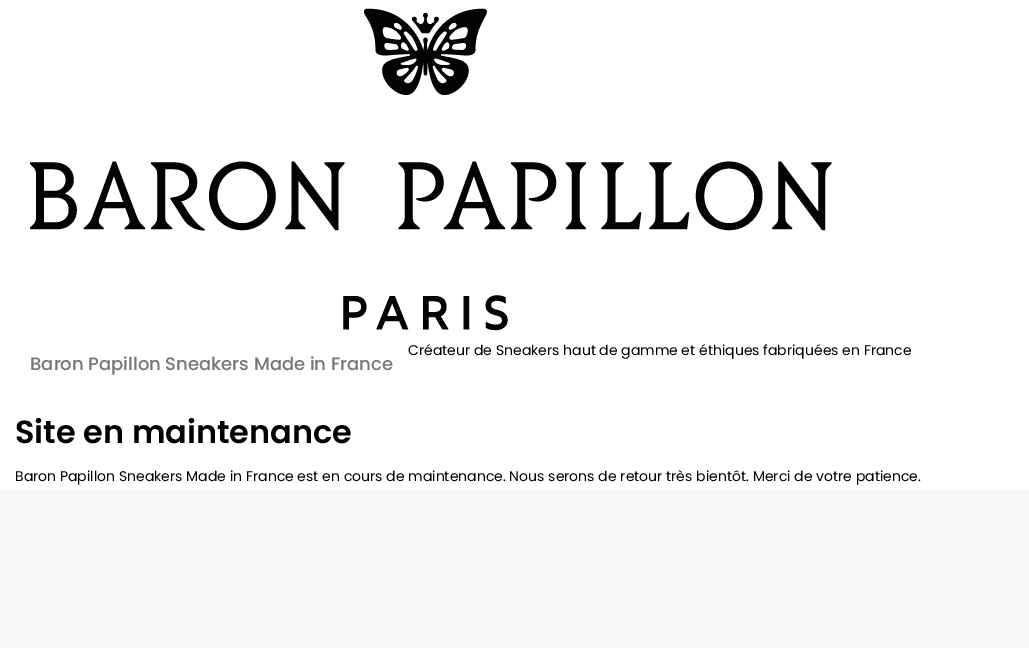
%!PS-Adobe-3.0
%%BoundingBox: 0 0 1029 648
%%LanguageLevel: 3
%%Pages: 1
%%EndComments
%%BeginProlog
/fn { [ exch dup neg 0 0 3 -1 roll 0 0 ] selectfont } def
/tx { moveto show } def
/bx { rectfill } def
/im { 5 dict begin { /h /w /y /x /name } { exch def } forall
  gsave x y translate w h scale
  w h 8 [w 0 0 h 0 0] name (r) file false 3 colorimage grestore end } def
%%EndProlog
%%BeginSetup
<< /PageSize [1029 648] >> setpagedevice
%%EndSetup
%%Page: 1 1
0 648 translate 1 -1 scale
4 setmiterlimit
0.973 setgray
0 0 1029 648 bx
1 setgray
0 0 1029 489 bx
(image0.raw) 30 8 802 323 im
/Poppins-Regular 14 fn
0 setgray
(Créateur de Sneakers haut de gamme et éthiques fabriquées en France) 408 355 tx
/Poppins-Medium 18 fn
0.467 setgray
(Baron Papillon Sneakers Made in France) 30 370 tx
/Poppins-SemiBold 32 fn
0 setgray
(Site en maintenance) 15 443 tx
/Poppins-Regular 14 fn
(Baron Papillon Sneakers Made in France est en cours de maintenance. Nous serons de retour très bientôt. Merci de votre patience.) 15 481 tx
showpage
%%EOF
